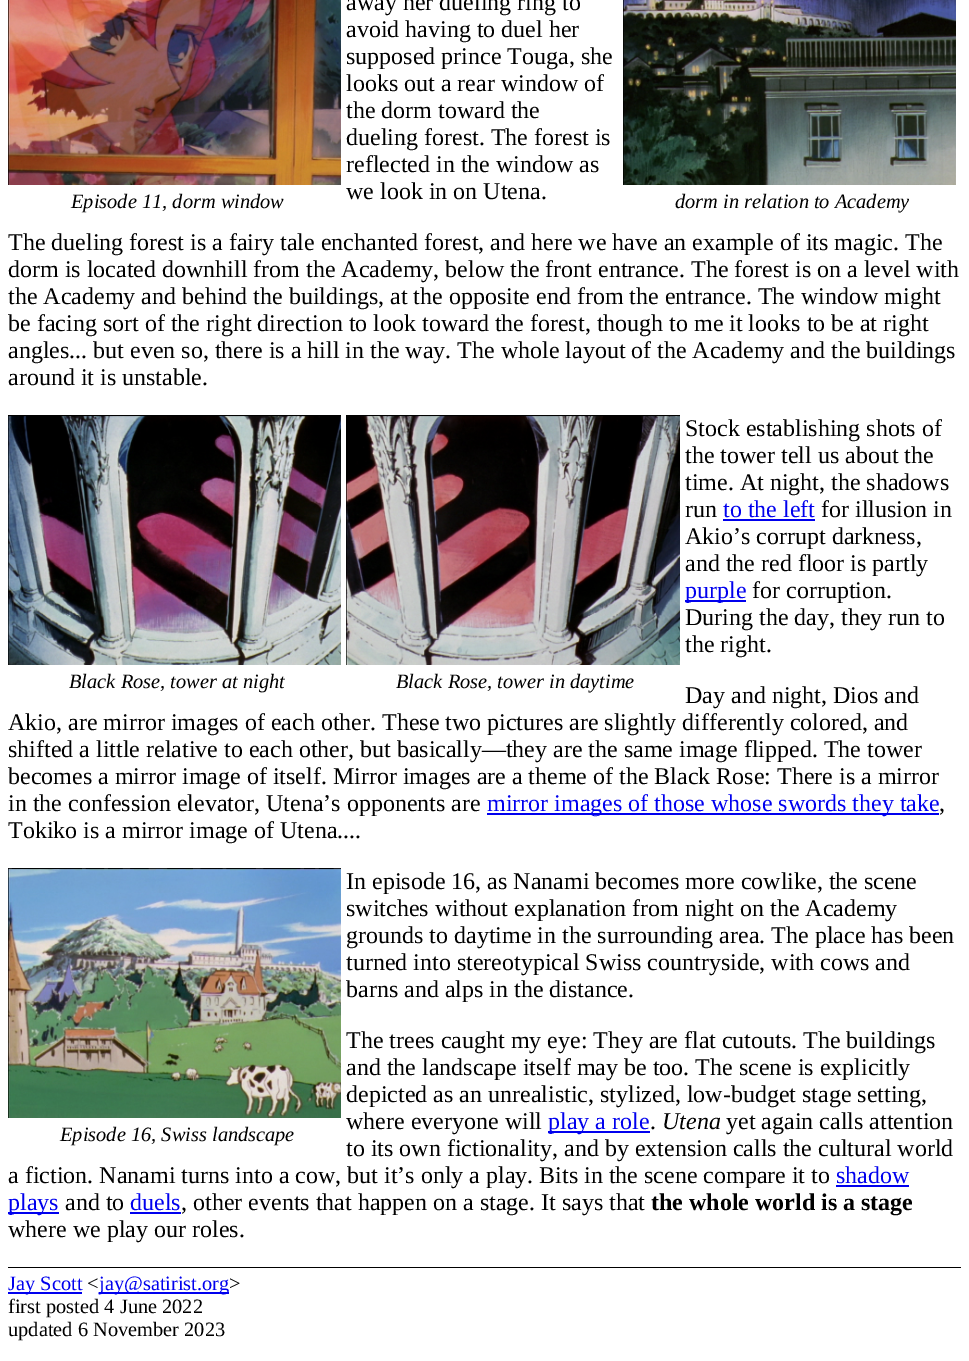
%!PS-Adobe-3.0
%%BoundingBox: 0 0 969 1361
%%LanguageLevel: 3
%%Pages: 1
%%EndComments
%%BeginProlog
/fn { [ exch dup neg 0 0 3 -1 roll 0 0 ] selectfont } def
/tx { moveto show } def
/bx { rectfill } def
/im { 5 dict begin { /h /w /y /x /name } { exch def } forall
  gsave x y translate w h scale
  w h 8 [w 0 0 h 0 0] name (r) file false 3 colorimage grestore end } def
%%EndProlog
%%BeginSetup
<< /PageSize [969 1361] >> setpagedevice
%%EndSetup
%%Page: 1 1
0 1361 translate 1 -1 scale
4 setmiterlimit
1 setgray
0 0 969 1361 bx
/LiberationSerif-Regular 24 fn
0 setgray
(away her dueling ring to) 346 10 tx
(avoid having to duel her) 346 37 tx
(supposed prince Touga, she) 346 64 tx
(looks out a rear window of) 346 91 tx
(the dorm toward the) 346 118 tx
(dueling forest. The forest is) 346 145 tx
(reflected in the window as) 346 172 tx
(we look in on Utena.) 346 199 tx
(image0.raw) 8 0 333 185 im
/LiberationSerif-Italic 20.4 fn
(Episode 11, dorm window) 71 208 tx
(image1.raw) 623 0 333 185 im
(dorm in relation to Academy) 675 208 tx
/LiberationSerif-Regular 24 fn
(The dueling forest is a fairy tale enchanted forest, and here we have an example of its magic. The) 8 250 tx
(dorm is located downhill from the Academy, below the front entrance. The forest is on a level with) 8 277 tx
(the Academy and behind the buildings, at the opposite end from the entrance. The window might) 8 304 tx
(be facing sort of the right direction to look toward the forest, though to me it looks to be at right) 8 331 tx
(angles... but even so, there is a hill in the way. The whole layout of the Academy and the buildings) 8 358 tx
(around it is unstable.) 8 385 tx
(Stock establishing shots of) 685 436 tx
(the tower tell us about the) 685 463 tx
(time. At night, the shadows) 685 490 tx
(run) 685 517 tx
0 0 0.933 setrgbcolor
(to the left) 723 517 tx
723 519 92 2 bx
0 setgray
(for illusion in) 821 517 tx
(Akio’s corrupt darkness,) 685 544 tx
(and the red floor is partly) 685 571 tx
0 0 0.933 setrgbcolor
685 600 61 2 bx
(purple) 685 598 tx
0 setgray
(for corruption.) 752 598 tx
(During the day, they run to) 685 625 tx
(the right.) 685 652 tx
(image2.raw) 8 415 333 250 im
/LiberationSerif-Italic 20.4 fn
(Black Rose, tower at night) 69 688 tx
(image3.raw) 346 415 334 250 im
(Black Rose, tower in daytime) 396 688 tx
/LiberationSerif-Regular 24 fn
(Day and night, Dios and) 685 703 tx
(Akio, are mirror images of each other. These two pictures are slightly differently colored, and) 8 730 tx
(shifted a little relative to each other, but basically—they are the same image flipped. The tower) 8 757 tx
(becomes a mirror image of itself. Mirror images are a theme of the Black Rose: There is a mirror) 8 784 tx
(in the confession elevator, Utena’s opponents are) 8 811 tx
0 0 0.933 setrgbcolor
487 813 452 2 bx
(mirror images of those whose swords they take) 487 811 tx
0 setgray
(,) 939 811 tx
(Tokiko is a mirror image of Utena....) 8 838 tx
(In episode 16, as Nanami becomes more cowlike, the scene) 346 889 tx
(switches without explanation from night on the Academy) 346 916 tx
(grounds to daytime in the surrounding area. The place has been) 346 943 tx
(turned into stereotypical Swiss countryside, with cows and) 346 970 tx
(barns and alps in the distance.) 346 997 tx
(The trees caught my eye: They are flat cutouts. The buildings) 346 1048 tx
(and the landscape itself may be too. The scene is explicitly) 346 1075 tx
(depicted as an unrealistic, stylized, low-budget stage setting,) 346 1102 tx
(where everyone will) 346 1129 tx
0 0 0.933 setrgbcolor
548 1131 102 2 bx
(play a role) 548 1129 tx
0 setgray
(.) 650 1129 tx
/LiberationSerif-Italic 24 fn
(Utena) 662 1129 tx
/LiberationSerif-Regular 24 fn
(yet again calls attention) 726 1129 tx
(to its own fictionality, and by extension calls the cultural world) 346 1156 tx
(a fiction. Nanami turns into a cow, but it’s only a play. Bits in the scene compare it to) 8 1183 tx
0 0 0.933 setrgbcolor
(shadow) 836 1183 tx
836 1185 73 2 bx
8 1212 51 2 bx
(plays) 8 1210 tx
0 setgray
(and to) 65 1210 tx
0 0 0.933 setrgbcolor
(duels) 130 1210 tx
130 1212 51 2 bx
0 setgray
(, other events that happen on a stage. It says that) 181 1210 tx
/LiberationSerif-Bold 24 fn
(the whole world is a stage) 651 1210 tx
/LiberationSerif-Regular 24 fn
(where we play our roles.) 8 1237 tx
(image4.raw) 8 868 333 250 im
/LiberationSerif-Italic 20.4 fn
(Episode 16, Swiss landscape) 60 1141 tx
8 1267 953 1 bx
0 0 0.933 setrgbcolor
8 1292 74 2 bx
/LiberationSerif-Regular 20.4 fn
(Jay Scott) 8 1290 tx
0 setgray
(<) 87 1290 tx
0 0 0.933 setrgbcolor
99 1292 130 2 bx
(jay@satirist.org) 99 1290 tx
0 setgray
(>) 229 1290 tx
(first posted 4 June 2022) 8 1313 tx
(updated 6 November 2023) 8 1336 tx
showpage
%%EOF
